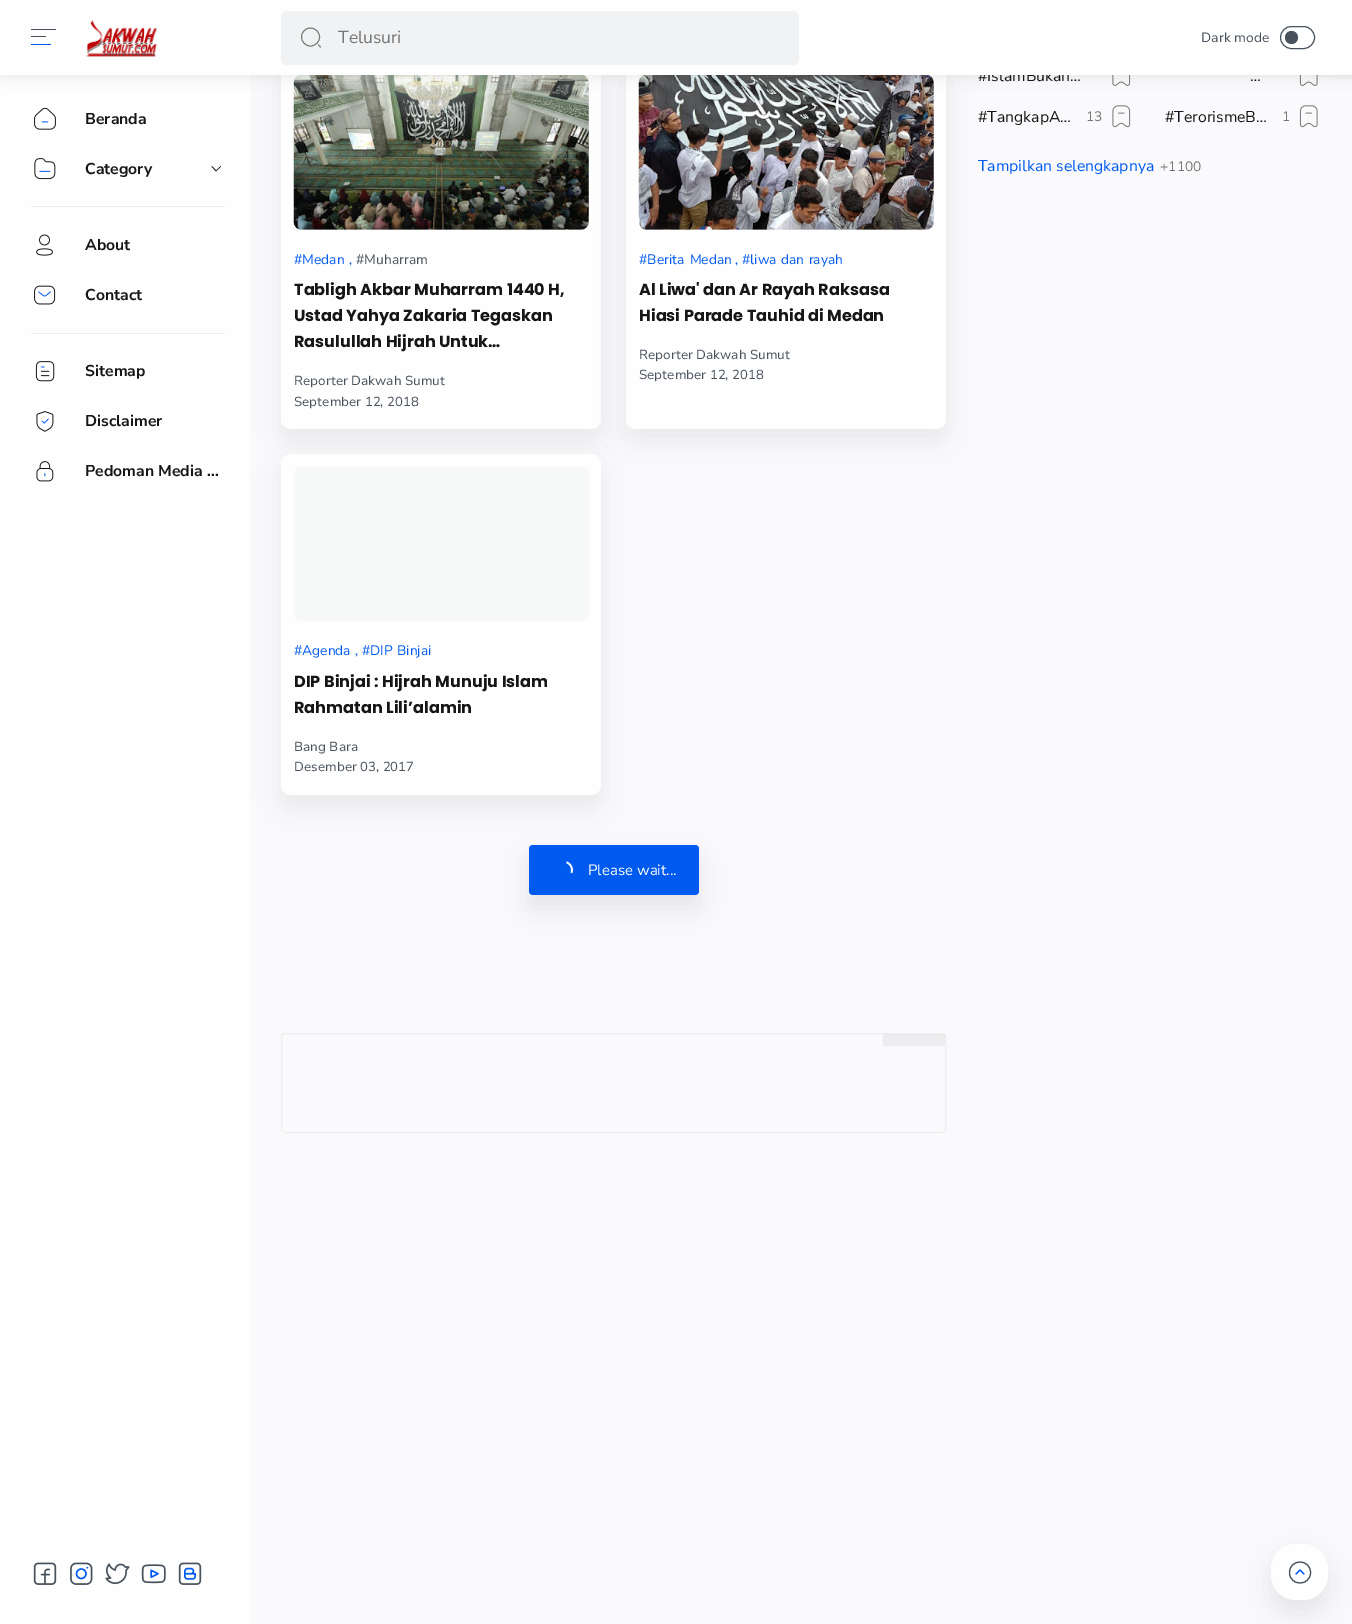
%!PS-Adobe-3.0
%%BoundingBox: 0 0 1352 1624
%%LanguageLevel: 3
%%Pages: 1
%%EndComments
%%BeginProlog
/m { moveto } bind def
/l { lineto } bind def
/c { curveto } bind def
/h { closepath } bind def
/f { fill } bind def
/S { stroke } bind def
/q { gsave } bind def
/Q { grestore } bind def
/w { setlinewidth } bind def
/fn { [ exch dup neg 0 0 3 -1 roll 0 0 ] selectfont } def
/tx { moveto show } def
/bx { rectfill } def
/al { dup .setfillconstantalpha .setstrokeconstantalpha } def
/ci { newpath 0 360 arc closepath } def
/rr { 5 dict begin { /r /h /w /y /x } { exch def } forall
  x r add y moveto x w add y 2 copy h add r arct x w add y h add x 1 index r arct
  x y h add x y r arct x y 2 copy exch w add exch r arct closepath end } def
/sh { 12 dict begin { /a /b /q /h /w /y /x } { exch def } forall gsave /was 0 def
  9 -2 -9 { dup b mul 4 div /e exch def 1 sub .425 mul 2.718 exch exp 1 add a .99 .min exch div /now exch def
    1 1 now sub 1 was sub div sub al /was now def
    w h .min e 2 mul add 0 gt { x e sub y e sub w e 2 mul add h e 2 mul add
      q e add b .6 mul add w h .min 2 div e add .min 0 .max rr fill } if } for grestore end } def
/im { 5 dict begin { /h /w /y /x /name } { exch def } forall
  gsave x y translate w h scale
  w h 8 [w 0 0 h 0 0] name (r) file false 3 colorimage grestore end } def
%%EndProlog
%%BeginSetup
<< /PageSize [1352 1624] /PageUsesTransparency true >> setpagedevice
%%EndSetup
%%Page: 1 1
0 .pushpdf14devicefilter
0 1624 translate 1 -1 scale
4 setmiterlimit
0.98 0.98 0.988 setrgbcolor
0 0 1352 1624 bx
0.961 0.961 0.969 setrgbcolor
1140 -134 m 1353 -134 l 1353 79 l 1235.5 79 1140 -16.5 1140 -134 c h f
0.118 setgray
281 75 320 366 10 12.5 0.07 sh
0.996 setgray
281 63 320 366 10 rr f
0.118 setgray
626 75 320 366 10 12.5 0.07 sh
0.996 setgray
626 63 320 366 10 rr f
0.118 setgray
281 466 320 342 10 12.5 0.07 sh
0.996 setgray
0 75 250 1549 bx
(image13.raw) 1112 75 19 11 im
(image14.raw) 1299 75 19 11 im
0.969 0.976 0.973 setrgbcolor
294 75 295 155 8 rr f
(image17.raw) 293 75 296 155 im
639 75 295 155 8 rr f
(image18.raw) 638 75 296 155 im
0 setgray
0 3 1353 75 0 6 0.07 sh
/NunitoSans-Regular 15.75 fn
0.086 0.086 0.09 setrgbcolor
(#IslamBukan…) 978 81 tx
0.996 setgray
0 0 1352 75 bx
0.282 0.322 0.361 setrgbcolor
31 29 25 1 bx
31 36 15 1 bx
0 0.353 0.941 setrgbcolor
31 44 20 1 bx
(image0.raw) 86 19 71 38 im
0.941 0.949 0.957 setrgbcolor
281 11 518 54 6 rr f
0.463 setgray
0.9 w
310.5 37 9 ci S
1 setlinecap
1 setlinejoin
320.5 47 m 318.5 45 l S
/NunitoSans-Regular 17.5 fn
(Telusuri) 338 43 tx
/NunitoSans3-Regular 13.5 fn
0.282 0.322 0.361 setrgbcolor
(Dark mode) 1201 42 tx
1 w
0 setlinecap
0 setlinejoin
1280.5 26.5 34 22 11 rr S
1291.5 37.5 6.5 ci f
(image1.raw) 34 107 22 23 im
/NunitoSans-Bold 15.75 fn
0.086 0.086 0.09 setrgbcolor
(Beranda) 85 124 tx
(image2.raw) 34 158 22 22 im
(Category) 85 174 tx
0.7 w
1 setlinecap
1 setlinejoin
212 166.5 m 216 171 l 220.5 166.5 l S
0.922 0.925 0.929 setrgbcolor
31 206 194 1 bx
(image3.raw) 36 234 17 22 im
q
85 233 45 25 rectclip
0.086 0.086 0.09 setrgbcolor
(About) 85 250 tx
Q
(image4.raw) 34 285 22 20 im
0.086 0.086 0.09 setrgbcolor
(Contact) 85 300 tx
0.922 0.925 0.929 setrgbcolor
31 333 194 1 bx
(image5.raw) 35 361 20 21 im
0.086 0.086 0.09 setrgbcolor
(Sitemap) 85 376 tx
(image6.raw) 36 411 18 21 im
(Disclaimer) 85 426 tx
(image7.raw) 36 461 18 21 im
(Pedoman Media …) 85 476 tx
(image8.raw) 33 1562 24 23 im
(image9.raw) 70 1562 23 23 im
(image10.raw) 105 1563 25 22 im
(image11.raw) 141 1564 25 20 im
(image12.raw) 178 1562 24 23 im
0.118 setgray
1271 1556 57 57 25 12.5 0.1 sh
0.996 setgray
1271 1544 57 56 25 rr f
0.282 0.322 0.361 setrgbcolor
1.1 w
1310.5 1572.5 m 1310.5 1558.5 1289.5 1558.5 1289.5 1572.5 c 1289.5 1586.5 1310.5 1586.5 1310.5 1572.5 c h S
0 0.353 0.941 setrgbcolor
1304 1574 m 1300 1570 l 1296 1574 l S
/NunitoSans-Regular 15.75 fn
0.086 0.086 0.09 setrgbcolor
(…) 1250 81 tx
(#TangkapA…) 978 122 tx
/NunitoSans-Regular 13.75 fn
0.463 setgray
(13) 1086 121 tx
(image15.raw) 1112 105 19 23 im
/NunitoSans-Regular 15.75 fn
0.086 0.086 0.09 setrgbcolor
(#TerorismeB…) 1165 122 tx
/NunitoSans-Regular 13.75 fn
0.463 setgray
(1) 1282 121 tx
(image16.raw) 1299 105 19 23 im
/NunitoSans-Regular 15.75 fn
0 0.353 0.941 setrgbcolor
(Tampilkan selengkapnya) 978 171 tx
/NunitoSans-Regular 13.75 fn
0.463 setgray
(+1100) 1160 171 tx
0 0.353 0.941 setrgbcolor
(#Medan) 294 264 tx
(,) 349 264 tx
0.282 0.322 0.361 setrgbcolor
(#Muharram) 356 264 tx
/Poppins-Bold 16.1 fn
0.086 0.086 0.09 setrgbcolor
(Tabligh Akbar Muharram 1440 H,) 294 295 tx
(Ustad Yahya Zakaria Tegaskan) 294 321 tx
(Rasulullah Hijrah Untuk…) 294 347 tx
/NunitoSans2-Regular 13.1 fn
0.282 0.322 0.361 setrgbcolor
(Reporter Dakwah Sumut) 294 385 tx
(September 12, 2018) 294 406 tx
/NunitoSans-Regular 13.75 fn
0 0.353 0.941 setrgbcolor
639 264 m 2 0 32 (#Berita Medan) widthshow
(,) 735 264 tx
742 264 m 1 0 32 (#liwa dan rayah) widthshow
/Poppins-Bold 16.1 fn
0.086 0.086 0.09 setrgbcolor
(Al Liwa' dan Ar Rayah Raksasa) 639 295 tx
(Hiasi Parade Tauhid di Medan) 639 321 tx
/NunitoSans2-Regular 13.1 fn
0.282 0.322 0.361 setrgbcolor
(Reporter Dakwah Sumut) 639 359 tx
(September 12, 2018) 639 379 tx
0.996 setgray
281 454 320 341 10 rr f
0.969 0.976 0.973 setrgbcolor
294 466 295 155 8 rr f
/NunitoSans-Regular 13.75 fn
0 0.353 0.941 setrgbcolor
(#Agenda) 294 655 tx
(,) 355 655 tx
362 655 m 1 0 32 (#DIP Binjai) widthshow
/Poppins-Bold 16.1 fn
0.086 0.086 0.09 setrgbcolor
(DIP Binjai : Hijrah Munuju Islam) 294 687 tx
(Rahmatan Lili’alamin) 294 713 tx
/NunitoSans2-Regular 13.1 fn
0.282 0.322 0.361 setrgbcolor
(Bang Bara) 294 751 tx
(Desember 03, 2017) 294 771 tx
0.118 setgray
529 858 170 50 4 12.5 0.1 sh
0 0.353 0.941 setrgbcolor
529 845 170 50 4 rr f
(image19.raw) 566 861 7 13 im
/NunitoSans-Regular 15 fn
0.996 setgray
(Please wait...) 588 875 tx
0.933 0.933 0.937 setrgbcolor
1 w
0 setlinecap
0 setlinejoin
281.5 1033.5 664 99 3.5 rr S
0.05 al
0 setgray
883 1034 62 12 bx
.poppdf14devicefilter showpage
%%EOF
